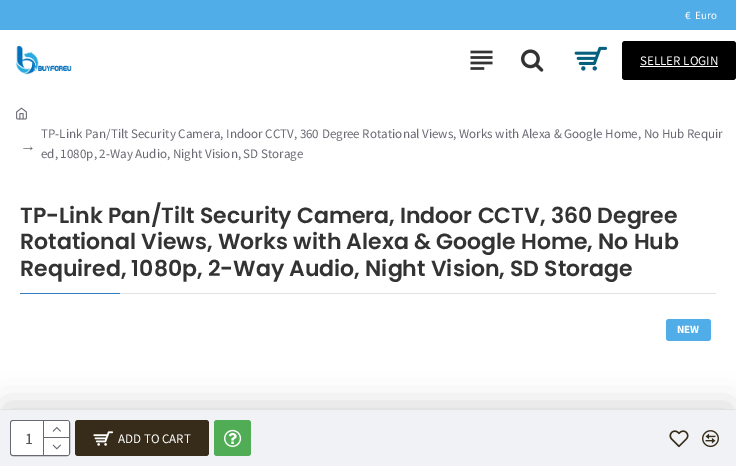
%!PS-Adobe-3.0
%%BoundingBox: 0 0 736 466
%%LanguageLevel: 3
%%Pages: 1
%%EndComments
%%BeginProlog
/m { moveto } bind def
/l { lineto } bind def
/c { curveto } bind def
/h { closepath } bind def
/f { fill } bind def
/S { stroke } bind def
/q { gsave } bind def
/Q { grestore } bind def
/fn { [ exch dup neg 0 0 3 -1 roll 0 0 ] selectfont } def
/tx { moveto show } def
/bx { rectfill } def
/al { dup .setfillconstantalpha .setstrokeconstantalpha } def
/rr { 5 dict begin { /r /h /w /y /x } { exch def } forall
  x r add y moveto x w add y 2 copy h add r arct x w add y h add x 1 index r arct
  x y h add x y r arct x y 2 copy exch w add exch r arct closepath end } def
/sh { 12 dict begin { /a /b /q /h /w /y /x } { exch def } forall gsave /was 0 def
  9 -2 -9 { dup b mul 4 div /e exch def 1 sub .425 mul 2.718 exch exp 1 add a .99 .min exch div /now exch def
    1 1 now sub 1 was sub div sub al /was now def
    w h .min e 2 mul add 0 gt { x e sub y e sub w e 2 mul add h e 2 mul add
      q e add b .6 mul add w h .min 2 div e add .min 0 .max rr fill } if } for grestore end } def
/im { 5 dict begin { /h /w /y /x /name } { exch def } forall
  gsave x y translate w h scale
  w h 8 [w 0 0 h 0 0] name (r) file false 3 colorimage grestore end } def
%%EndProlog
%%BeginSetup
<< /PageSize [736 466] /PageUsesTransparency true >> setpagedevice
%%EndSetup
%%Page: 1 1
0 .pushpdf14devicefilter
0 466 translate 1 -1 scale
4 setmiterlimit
1 setgray
0 0 736 466 bx
0.318 0.678 0.906 setrgbcolor
0 0 736 30 bx
/SourceSansPro-Regular 11 fn
1 setgray
(€) 685 19 tx
(Euro) 695 19 tx
(image0.raw) 15 45 57 30 im
(image1.raw) 470 50 23 20 im
(image2.raw) 521 49 23 23 im
(image3.raw) 574 46 34 25 im
0 setgray
622 41 114 39 3 rr f
/SourceSansPro-Regular 13 fn
1 setgray
(SELLER LOGIN) 640 65 tx
640 66 78 1 bx
(image4.raw) 16 107 11 13 im
/LiberationSerif-Regular 16 fn
0.412 0.412 0.451 setrgbcolor
(→) 20 151 tx
/SourceSansPro-Regular 13 fn
(TP-Link Pan/Tilt Security Camera, Indoor CCTV, 360 Degree Rotational Views, Works with Alexa & Google Home, No Hub Requir) 41 138 tx
(ed, 1080p, 2-Way Audio, Night Vision, SD Storage) 41 158 tx
0.886 setgray
120 293 596 1 bx
/Poppins-SemiBold 22 fn
0.2 setgray
(TP-Link Pan/Tilt Security Camera, Indoor CCTV, 360 Degree) 20 223 tx
(Rotational Views, Works with Alexa & Google Home, No Hub) 20 249 tx
(Required, 1080p, 2-Way Audio, Night Vision, SD Storage) 20 276 tx
0.2 0.49 0.773 setrgbcolor
20 293 100 1 bx
0.318 0.678 0.906 setrgbcolor
666 319 45 22 3 rr f
/SourceSansPro-Bold 11 fn
1 setgray
(NEW) 677 333 tx
0 setgray
5 404 726 47 0 15 0.15 sh
0.941 0.949 0.961 setrgbcolor
0 410 736 56 bx
0.886 setgray
0 409 736 1 bx
0.412 0.412 0.451 setrgbcolor
10.5 420.5 59 35 2.5 rr S
q
11 421 58 34 2 rr clip newpath
1 setgray
11 421 58 34 3 rr f
Q
/SourceSansPro-Regular 16 fn
0.333 setgray
(1) 25 444 tx
0.412 0.412 0.451 setrgbcolor
43 421 1 34 bx
1 setgray
44 421 m 67 421 l 68 421 69 422 69 423 c 69 437 l 44 437 l h f
0.412 0.412 0.451 setrgbcolor
44 437 25 1 bx
(image5.raw) 52 426 9 6 im
1 setgray
44 438 m 69 438 l 69 453 l 69 454 68 455 67 455 c 44 455 l h f
(image6.raw) 52 444 9 6 im
0.216 0.173 0.098 setrgbcolor
75 420 134 36 3 rr f
(image7.raw) 93 431 21 15 im
/SourceSansPro-Regular 13 fn
1 setgray
(ADD TO CART) 118 443 tx
0.314 0.678 0.333 setrgbcolor
214 420 37 36 3 rr f
(image8.raw) 224 429 18 18 im
(image9.raw) 669 430 20 18 im
(image10.raw) 702 430 17 18 im
.poppdf14devicefilter showpage
%%EOF
